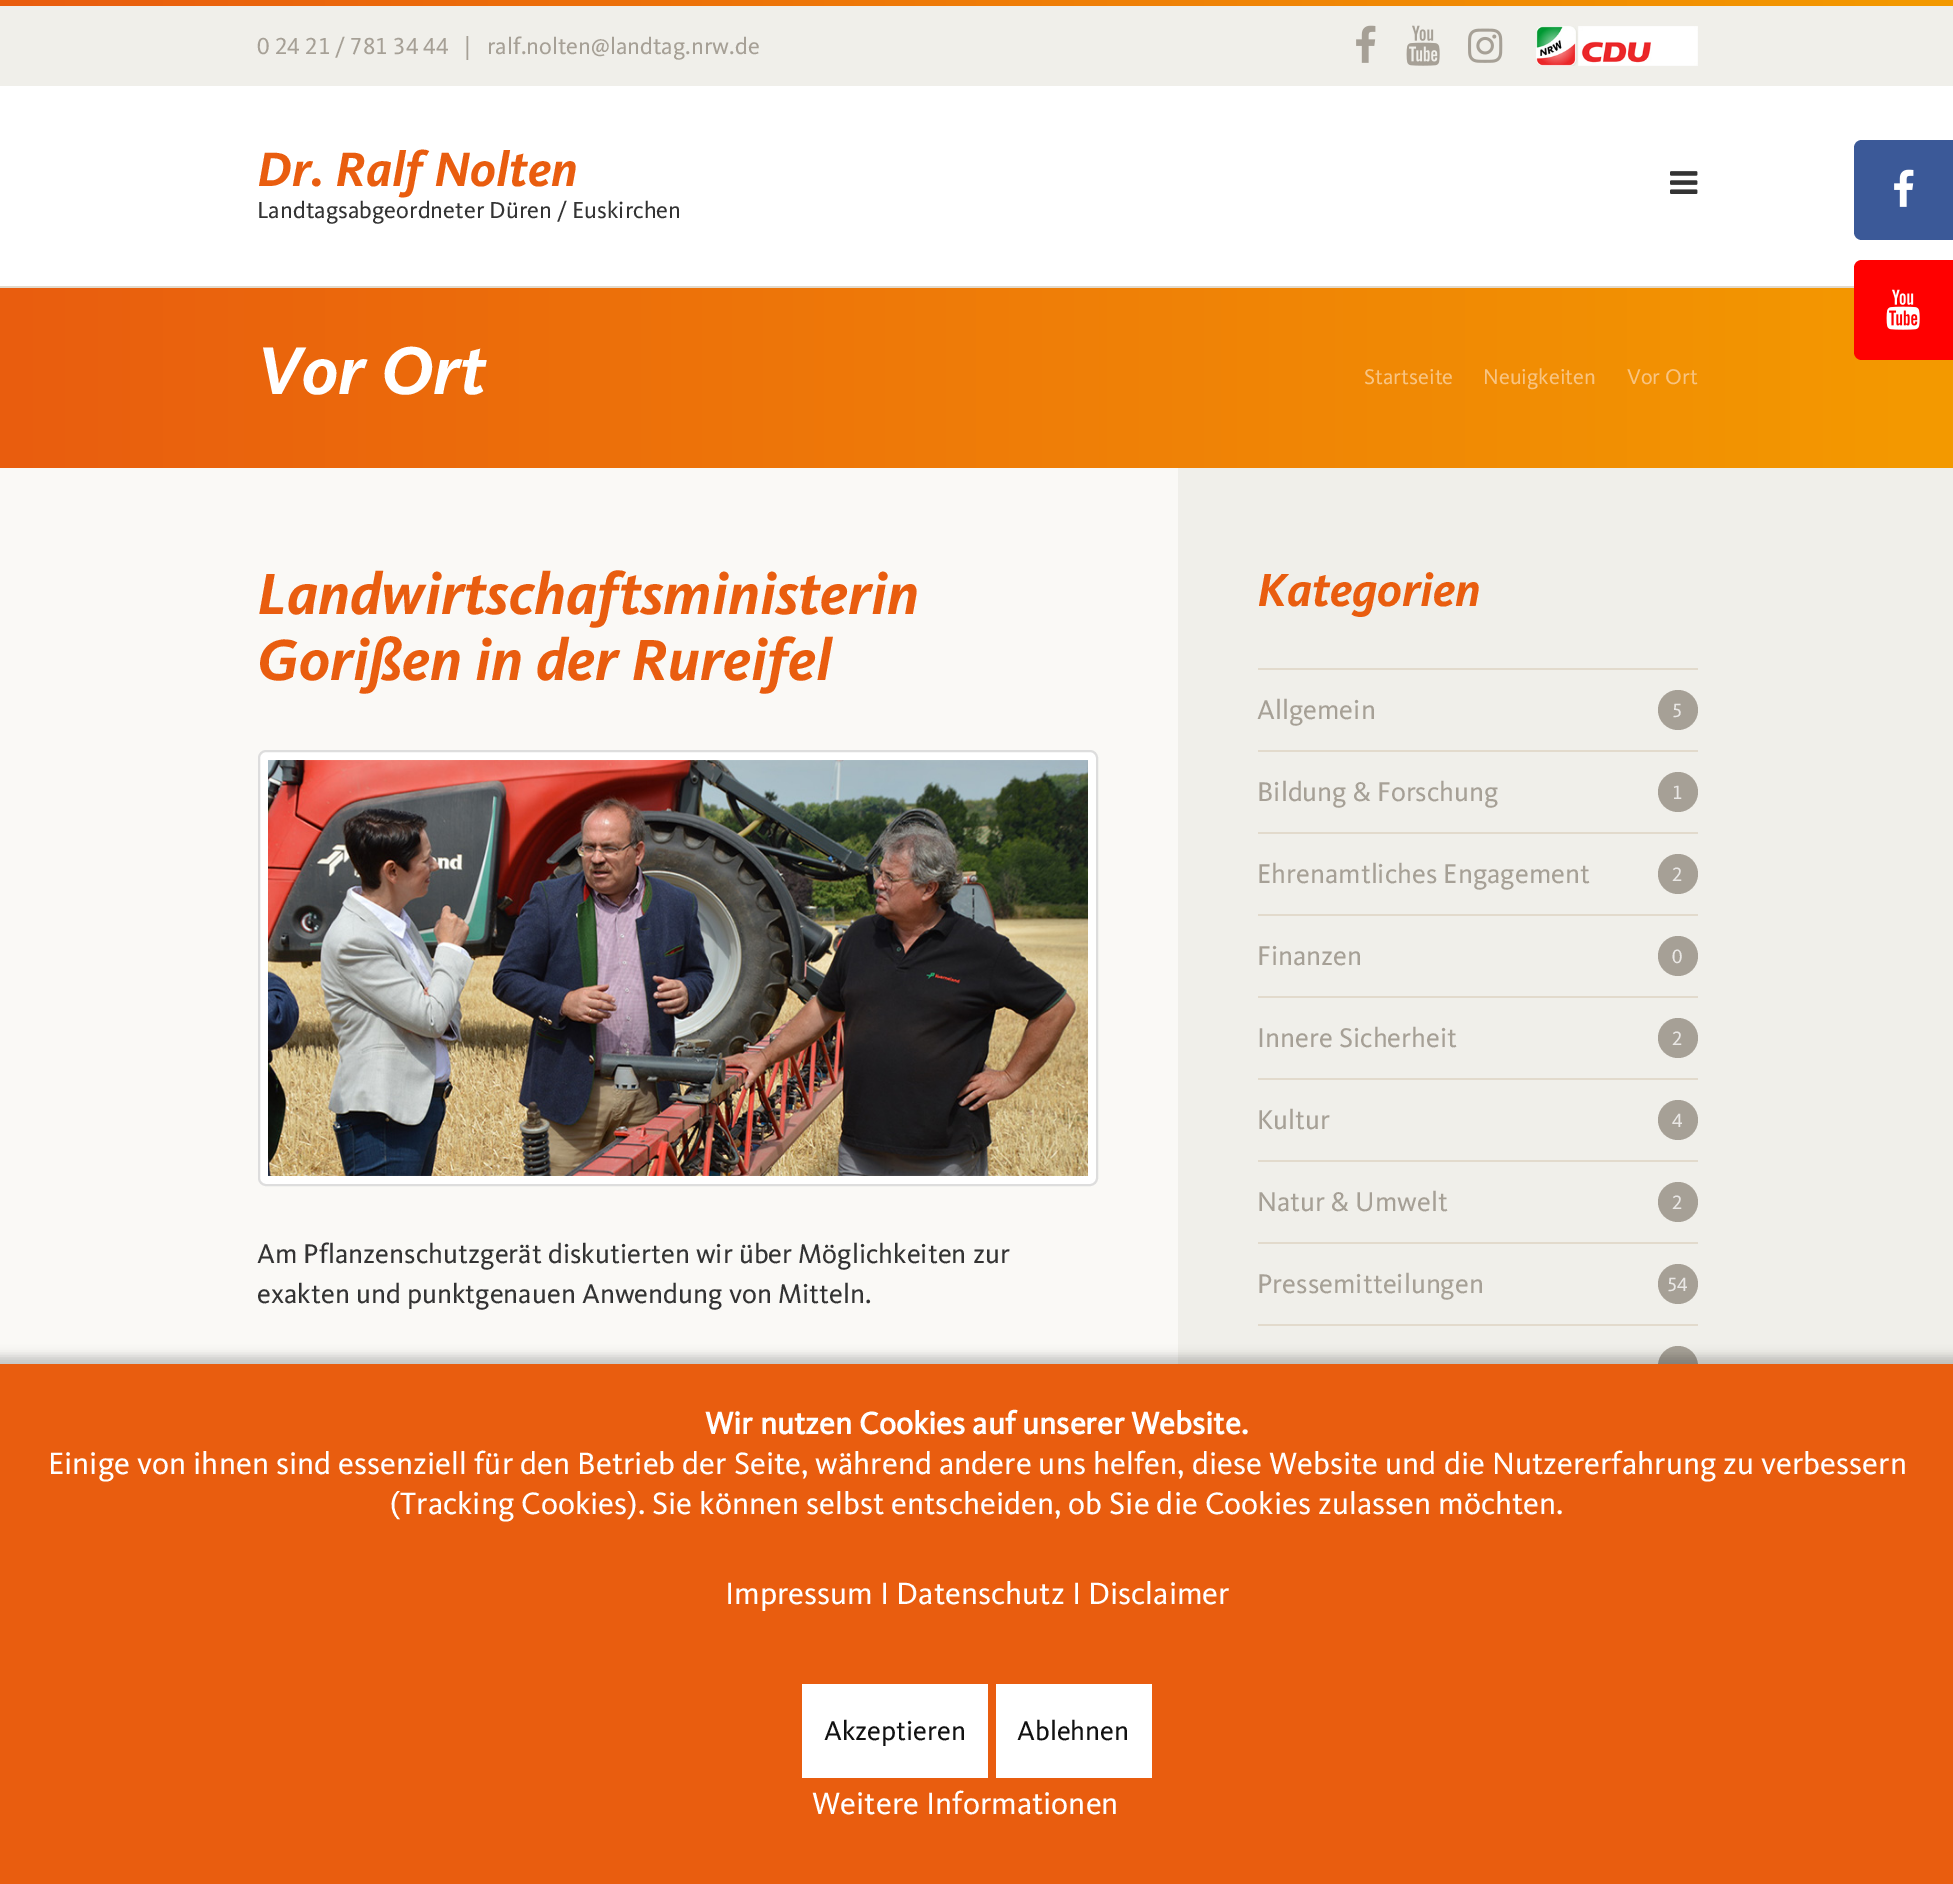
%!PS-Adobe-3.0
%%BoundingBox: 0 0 1953 1884
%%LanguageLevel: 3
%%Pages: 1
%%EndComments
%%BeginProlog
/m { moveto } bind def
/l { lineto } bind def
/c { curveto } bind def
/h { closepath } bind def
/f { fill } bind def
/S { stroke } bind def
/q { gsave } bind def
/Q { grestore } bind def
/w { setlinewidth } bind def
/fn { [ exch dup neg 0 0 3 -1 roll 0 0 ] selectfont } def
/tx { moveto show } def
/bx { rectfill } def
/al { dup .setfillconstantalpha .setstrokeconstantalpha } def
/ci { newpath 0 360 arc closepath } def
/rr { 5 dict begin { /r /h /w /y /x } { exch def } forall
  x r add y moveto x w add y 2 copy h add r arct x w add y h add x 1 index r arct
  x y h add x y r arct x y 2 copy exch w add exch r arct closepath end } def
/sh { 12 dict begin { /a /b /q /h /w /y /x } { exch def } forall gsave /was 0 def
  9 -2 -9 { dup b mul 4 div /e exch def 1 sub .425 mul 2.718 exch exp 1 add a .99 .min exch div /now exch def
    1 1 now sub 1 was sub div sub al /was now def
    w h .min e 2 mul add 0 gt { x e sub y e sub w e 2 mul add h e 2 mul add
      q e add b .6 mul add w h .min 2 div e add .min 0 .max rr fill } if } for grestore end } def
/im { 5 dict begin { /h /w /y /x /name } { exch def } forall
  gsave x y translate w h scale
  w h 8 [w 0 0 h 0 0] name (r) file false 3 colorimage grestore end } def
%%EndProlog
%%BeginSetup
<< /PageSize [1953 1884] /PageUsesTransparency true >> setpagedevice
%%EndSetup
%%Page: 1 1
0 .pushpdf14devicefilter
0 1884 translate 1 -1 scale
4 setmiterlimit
1 setgray
0 0 1953 1884 bx
q 0 0 m 1953 0 l 1953 6 l 0 6 l h clip newpath
<< /ShadingType 2 /ColorSpace /DeviceRGB /Coords [0 3 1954 3] /Extend [true true] /Function << /FunctionType 2 /Domain [0 1] /C0 [0.914 0.365 0.059] /C1 [0.957 0.604 0] /N 1 >> >> shfill Q
0.941 0.937 0.918 setrgbcolor
0 6 1953 80 bx
/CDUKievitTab-Regular 24 fn
0.651 0.627 0.588 setrgbcolor
(0 24 21 / 781 34 44) 257 54 tx
(|) 464 54 tx
(ralf.nolten@landtag.nrw.de) 487 54 tx
(image0.raw) 1356 25 20 38 im
(image1.raw) 1406 25 34 41 im
(image2.raw) 1468 28 35 35 im
(image3.raw) 1536 26 162 40 im
0.886 0.855 0.8 setrgbcolor
0 286 1854 2 bx
/CDUKievitTab-BoldItalic 50 fn
0.914 0.365 0.059 setrgbcolor
(Dr. Ralf Nolten) 257 186 tx
/CDUKievitTab-Regular 24 fn
0.2 setgray
(Landtagsabgeordneter Düren / Euskirchen) 257 218 tx
(image4.raw) 1670 171 28 23 im
0.231 0.349 0.596 setrgbcolor
1862 140 m 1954 140 l 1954 240 l 1862 240 l 1857.5 240 1854 236.5 1854 232 c 1854 148 l 1854 143.5 1857.5 140 1862 140 c h f
(image5.raw) 1894 169 20 38 im
q 0 288 m 1953 288 l 1953 468 l 0 468 l h clip newpath
<< /ShadingType 2 /ColorSpace /DeviceRGB /Coords [0 378 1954 378] /Extend [true true] /Function << /FunctionType 2 /Domain [0 1] /C0 [0.914 0.365 0.059] /C1 [0.957 0.604 0] /N 1 >> >> shfill Q
1 0 0 setrgbcolor
1862 260 m 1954 260 l 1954 360 l 1862 360 l 1857.5 360 1854 356.5 1854 352 c 1854 268 l 1854 263.5 1857.5 260 1862 260 c h f
(image6.raw) 1886 289 34 41 im
/CDUKievitTab-BoldItalic 70 fn
1 setgray
(Vor Ort) 257 394 tx
/CDUKievitTab-Regular 22 fn
0.973 0.769 0.51 setrgbcolor
(Startseite) 1364 384 tx
(Neuigkeiten) 1483 384 tx
(Vor Ort) 1627 384 tx
0.98 0.976 0.965 setrgbcolor
0 468 1178 896 bx
/CDUKievitTab-BoldItalic 60 fn
0.914 0.365 0.059 setrgbcolor
(Landwirtschaftsministerin) 257 614 tx
(Gorißen in der Rureifel) 257 680 tx
1 setgray
259 751 838 434 7 rr q f Q
0.867 setgray
2 w
S
(image7.raw) 268 760 820 416 im
/CDUKievitTab-Regular 28 fn
0.2 setgray
(Am Pflanzenschutzgerät diskutierten wir über Möglichkeiten zur) 257 1263 tx
(exakten und punktgenauen Anwendung von Mitteln.) 257 1303 tx
0.941 0.937 0.918 setrgbcolor
1178 468 775 896 bx
/CDUKievitTab-BoldItalic 48 fn
0.914 0.365 0.059 setrgbcolor
(Kategorien) 1257 606 tx
0.886 0.855 0.8 setrgbcolor
1258 668 440 2 bx
1258 750 440 2 bx
/CDUKievitTab-Regular 28 fn
0.651 0.627 0.588 setrgbcolor
(Allgemein) 1257 719 tx
1678 710 20 ci f
/CDUKievitTab-Regular 20 fn
0.914 0.906 0.898 setrgbcolor
(5) 1672 717 tx
0.886 0.855 0.8 setrgbcolor
1258 832 440 2 bx
/CDUKievitTab-Regular 28 fn
0.651 0.627 0.588 setrgbcolor
(Bildung & Forschung) 1257 801 tx
1678 792 20 ci f
/CDUKievitTab-Regular 20 fn
0.914 0.906 0.898 setrgbcolor
(1) 1672 799 tx
0.886 0.855 0.8 setrgbcolor
1258 914 440 2 bx
/CDUKievitTab-Regular 28 fn
0.651 0.627 0.588 setrgbcolor
(Ehrenamtliches Engagement) 1257 883 tx
1678 874 20 ci f
/CDUKievitTab-Regular 20 fn
0.914 0.906 0.898 setrgbcolor
(2) 1672 881 tx
0.886 0.855 0.8 setrgbcolor
1258 996 440 2 bx
/CDUKievitTab-Regular 28 fn
0.651 0.627 0.588 setrgbcolor
(Finanzen) 1257 965 tx
1678 956 20 ci f
/CDUKievitTab-Regular 20 fn
0.914 0.906 0.898 setrgbcolor
(0) 1672 963 tx
0.886 0.855 0.8 setrgbcolor
1258 1078 440 2 bx
/CDUKievitTab-Regular 28 fn
0.651 0.627 0.588 setrgbcolor
(Innere Sicherheit) 1257 1047 tx
1678 1038 20 ci f
/CDUKievitTab-Regular 20 fn
0.914 0.906 0.898 setrgbcolor
(2) 1672 1045 tx
0.886 0.855 0.8 setrgbcolor
1258 1160 440 2 bx
/CDUKievitTab-Regular 28 fn
0.651 0.627 0.588 setrgbcolor
(Kultur) 1257 1129 tx
1678 1120 20 ci f
/CDUKievitTab-Regular 20 fn
0.914 0.906 0.898 setrgbcolor
(4) 1672 1127 tx
0.886 0.855 0.8 setrgbcolor
1258 1242 440 2 bx
/CDUKievitTab-Regular 28 fn
0.651 0.627 0.588 setrgbcolor
(Natur & Umwelt) 1257 1211 tx
1678 1202 20 ci f
/CDUKievitTab-Regular 20 fn
0.914 0.906 0.898 setrgbcolor
(2) 1672 1209 tx
0.886 0.855 0.8 setrgbcolor
1258 1324 440 2 bx
/CDUKievitTab-Regular 28 fn
0.651 0.627 0.588 setrgbcolor
(Pressemitteilungen) 1257 1293 tx
1678 1284 20 ci f
/CDUKievitTab-Regular 20 fn
0.914 0.906 0.898 setrgbcolor
(54) 1667 1291 tx
0.651 0.627 0.588 setrgbcolor
1678 1366 20 ci f
0 setgray
-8 1356 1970 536 0 5 0.21 sh
0.914 0.365 0.059 setrgbcolor
0 1364 1953 520 bx
/CDUKievitTab-Bold 32 fn
1 setgray
(Wir nutzen Cookies auf unserer Website.) 705 1434 tx
/CDUKievitTab-Regular 32 fn
(Einige von ihnen sind essenziell für den Betrieb der Seite, während andere uns helfen, diese Website und die Nutzererfahrung zu verbessern) 48 1474 tx
(\(Tracking Cookies\). Sie können selbst entscheiden, ob Sie die Cookies zulassen möchten.) 390 1514 tx
(Impressum I Datenschutz I Disclaimer) 725 1604 tx
802 1684 186 94 bx
/CDUKievitTab-Regular 28 fn
0.067 setgray
(Akzeptieren) 824 1740 tx
1 setgray
996 1684 156 94 bx
0.067 setgray
(Ablehnen) 1017 1740 tx
/CDUKievitTab-Regular 32 fn
1 setgray
(Weitere Informationen) 812 1814 tx
.poppdf14devicefilter showpage
%%EOF
